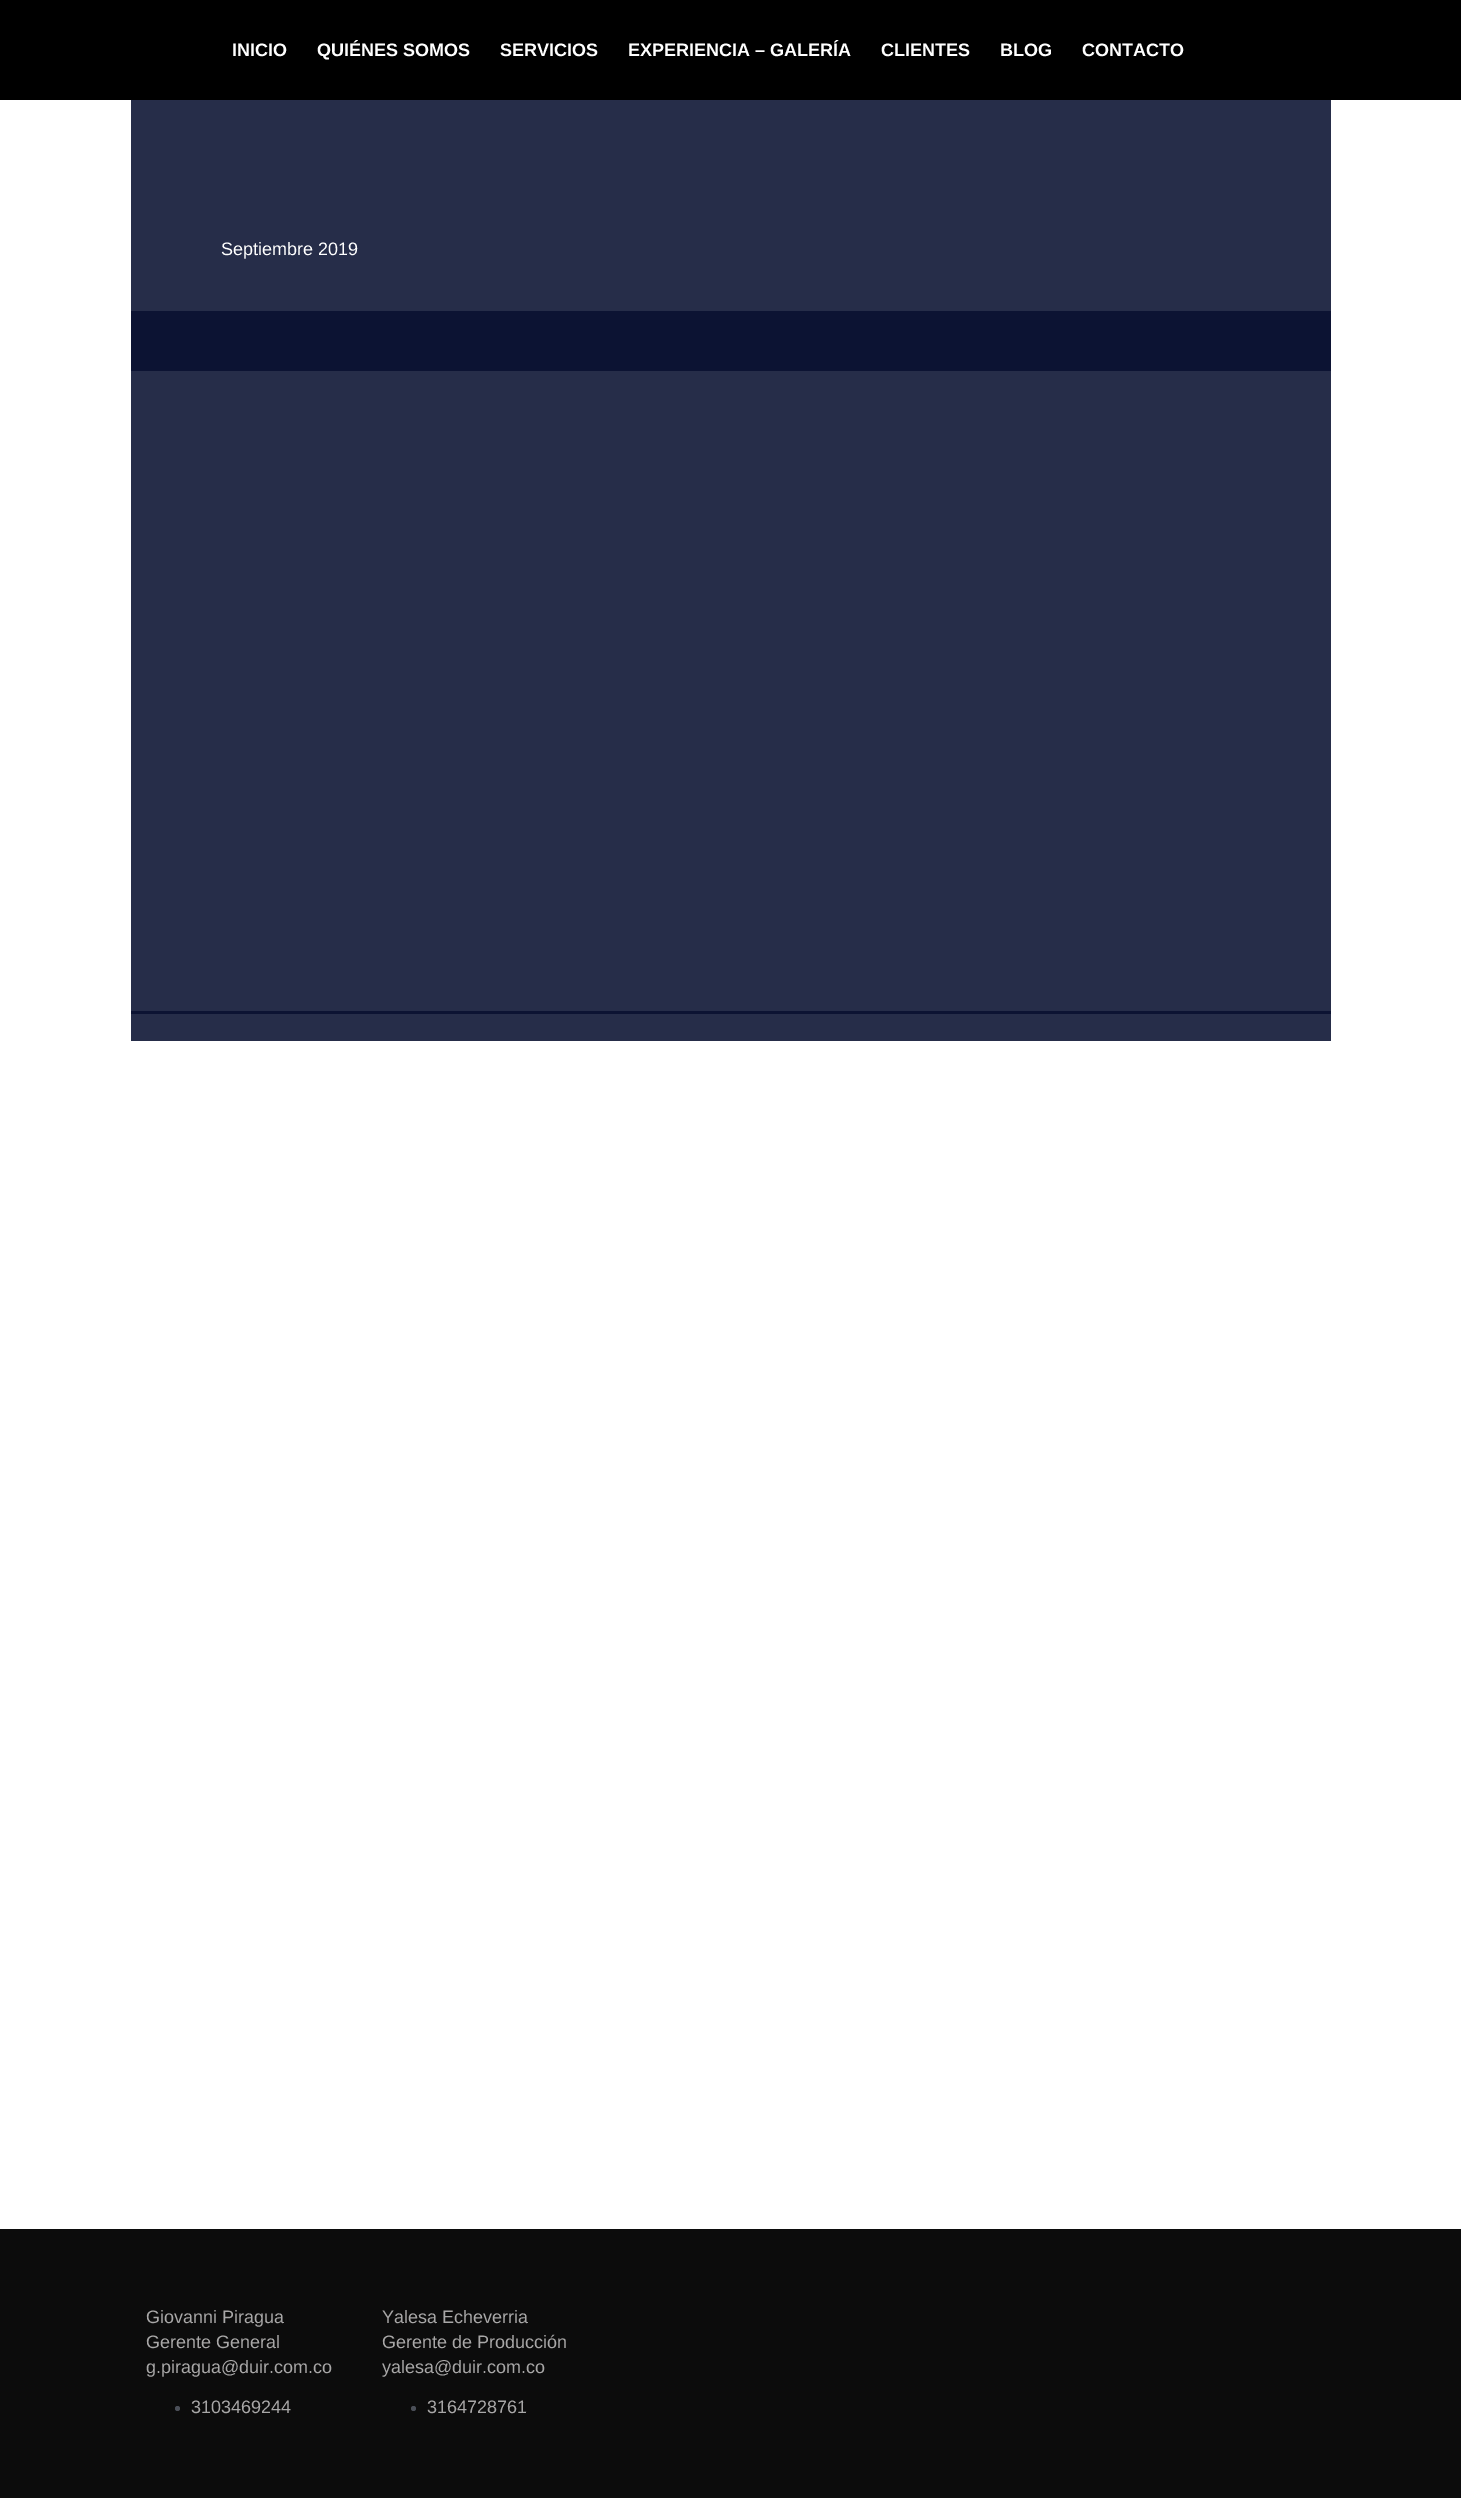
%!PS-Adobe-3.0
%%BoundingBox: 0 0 1461 2498
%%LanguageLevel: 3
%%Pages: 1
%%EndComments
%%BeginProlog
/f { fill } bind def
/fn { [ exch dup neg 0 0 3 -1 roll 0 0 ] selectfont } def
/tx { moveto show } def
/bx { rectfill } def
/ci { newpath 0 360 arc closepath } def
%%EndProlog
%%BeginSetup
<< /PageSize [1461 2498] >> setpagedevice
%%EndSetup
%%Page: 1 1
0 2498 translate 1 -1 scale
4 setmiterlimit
1 setgray
0 0 1461 2498 bx
0.149 0.176 0.286 setrgbcolor
131 1014 1200 27 bx
131 371 1200 640 bx
0.047 0.075 0.2 setrgbcolor
131 1011 1200 3 bx
0 setgray
0 0 1461 100 bx
/LiberationSans-Bold 18 fn
1 setgray
(INICIO) 232 56 tx
(QUIÉNES SOMOS) 317 56 tx
(SERVICIOS) 500 56 tx
(EXPERIENCIA – GALERÍA) 628 56 tx
(CLIENTES) 881 56 tx
(BLOG) 1000 56 tx
(CONTACTO) 1082 56 tx
0.149 0.176 0.286 setrgbcolor
131 100 1200 211 bx
0.047 0.075 0.2 setrgbcolor
131 311 1200 60 bx
/LiberationSans-Regular 18 fn
1 setgray
(Septiembre 2019) 221 255 tx
0.047 setgray
0 2229 1461 269 bx
0.659 0.655 0.655 setrgbcolor
(Giovanni Piragua) 146 2323 tx
(Gerente General) 146 2348 tx
(g.piragua@duir.com.co) 146 2373 tx
0.294 0.31 0.345 setrgbcolor
177.5 2408.5 2.5 ci f
0.659 0.655 0.655 setrgbcolor
(3103469244) 191 2413 tx
(Yalesa Echeverria) 382 2323 tx
(Gerente de Producción) 382 2348 tx
(yalesa@duir.com.co) 382 2373 tx
0.294 0.31 0.345 setrgbcolor
413.5 2408.5 2.5 ci f
0.659 0.655 0.655 setrgbcolor
(3164728761) 427 2413 tx
showpage
%%EOF
